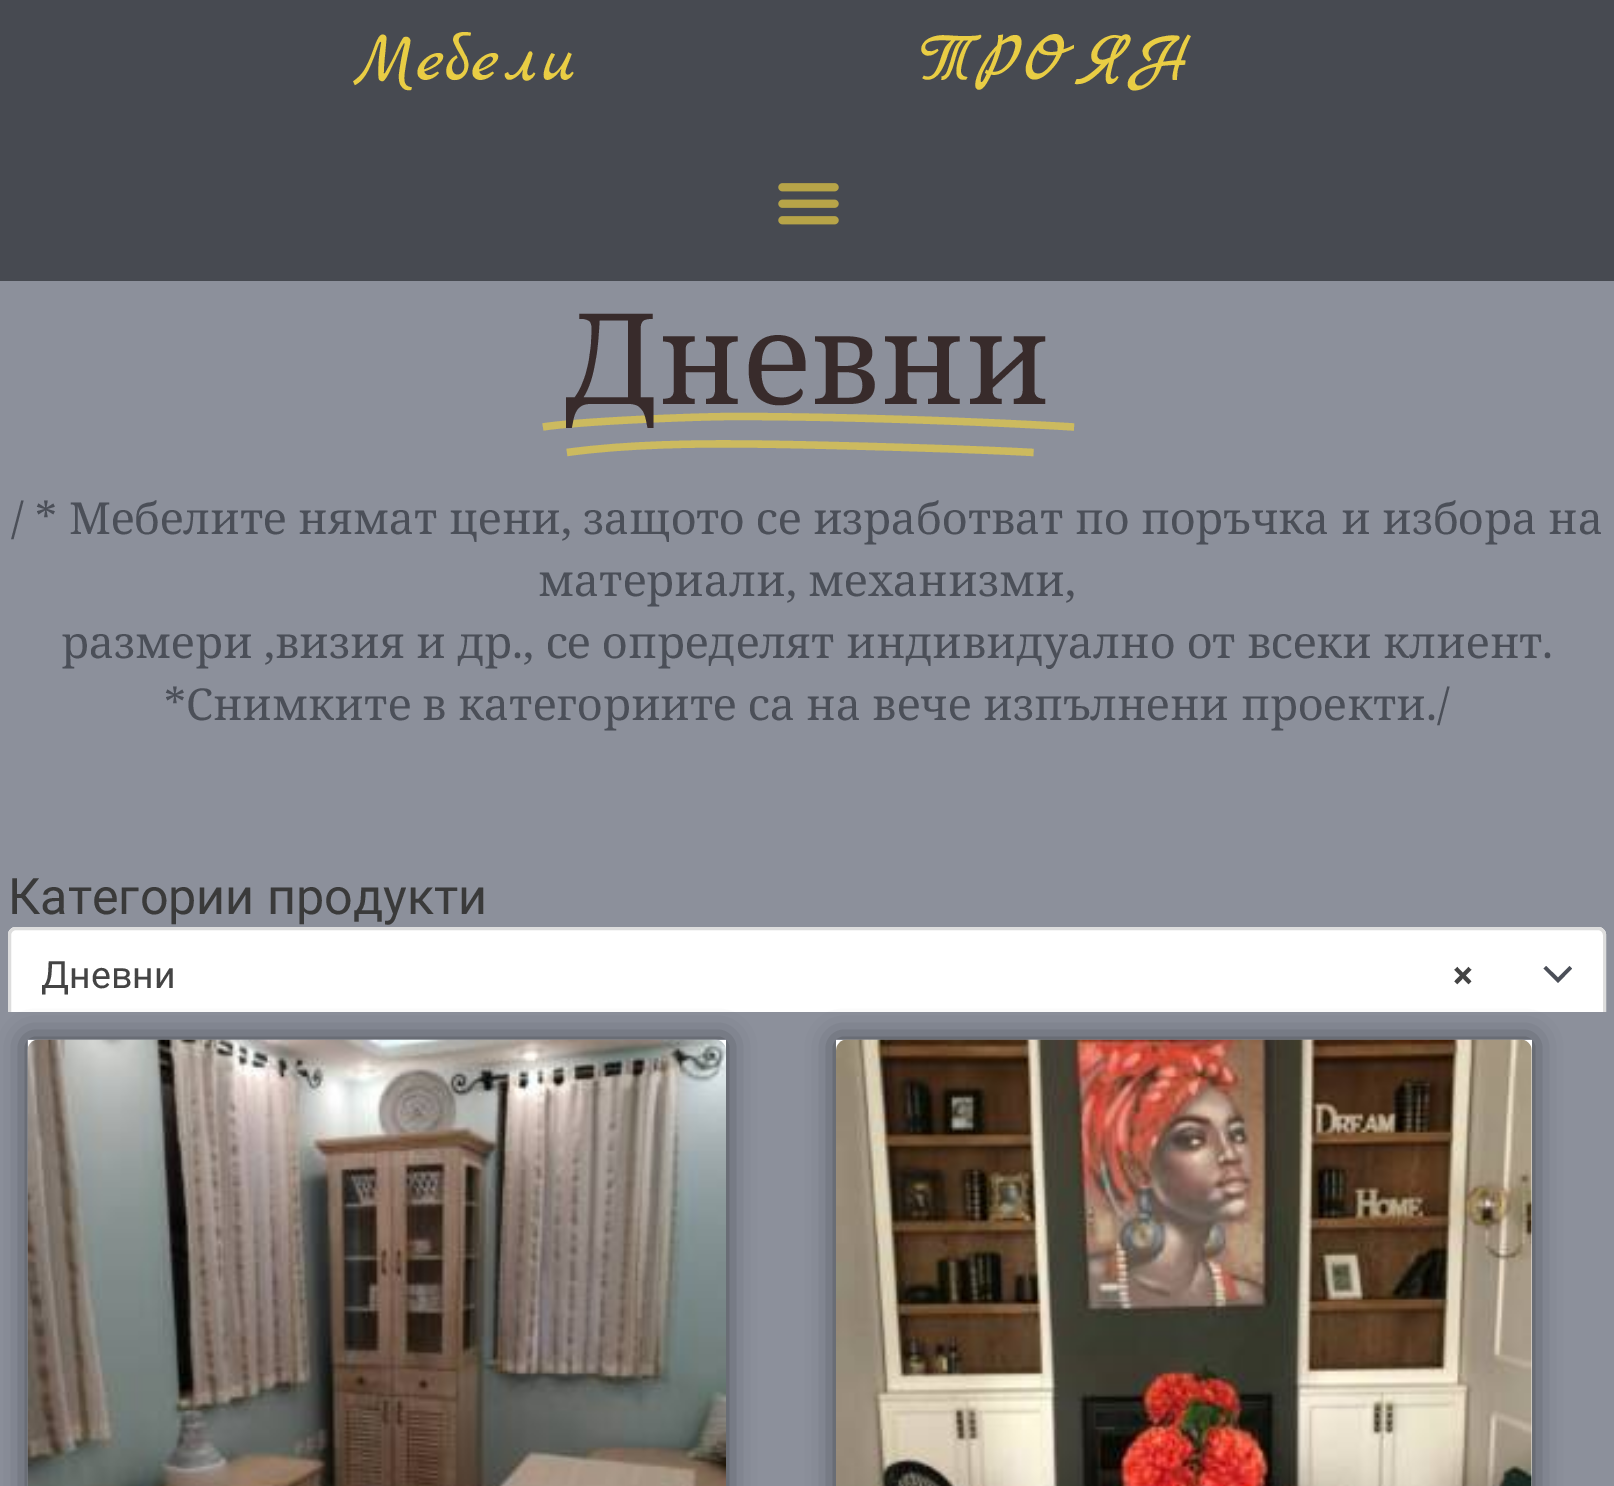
%!PS-Adobe-3.0
%%BoundingBox: 0 0 1614 1486
%%LanguageLevel: 3
%%Pages: 1
%%EndComments
%%BeginProlog
/m { moveto } bind def
/l { lineto } bind def
/c { curveto } bind def
/h { closepath } bind def
/f { fill } bind def
/S { stroke } bind def
/w { setlinewidth } bind def
/fn { [ exch dup neg 0 0 3 -1 roll 0 0 ] selectfont } def
/tx { moveto show } def
/bx { rectfill } def
/al { dup .setfillconstantalpha .setstrokeconstantalpha } def
/rr { 5 dict begin { /r /h /w /y /x } { exch def } forall
  x r add y moveto x w add y 2 copy h add r arct x w add y h add x 1 index r arct
  x y h add x y r arct x y 2 copy exch w add exch r arct closepath end } def
/sh { 12 dict begin { /a /b /q /h /w /y /x } { exch def } forall gsave /was 0 def
  9 -2 -9 { dup b mul 4 div /e exch def 1 sub .425 mul 2.718 exch exp 1 add a .99 .min exch div /now exch def
    1 1 now sub 1 was sub div sub al /was now def
    w h .min e 2 mul add 0 gt { x e sub y e sub w e 2 mul add h e 2 mul add
      q e add b .6 mul add w h .min 2 div e add .min 0 .max rr fill } if } for grestore end } def
/im { 5 dict begin { /h /w /y /x /name } { exch def } forall
  gsave x y translate w h scale
  w h 8 [w 0 0 h 0 0] name (r) file false 3 colorimage grestore end } def
%%EndProlog
%%BeginSetup
<< /PageSize [1614 1486] /PageUsesTransparency true >> setpagedevice
%%EndSetup
%%Page: 1 1
0 .pushpdf14devicefilter
0 1486 translate 1 -1 scale
4 setmiterlimit
0.278 0.29 0.318 setrgbcolor
0 0 1614 1486 bx
/MarckScript-Regular 71.5 fn
0.914 0.804 0.267 setrgbcolor
(Мебели Стенимакс ТРОЯН) 353 80 tx
(image0.raw) 778 183 61 42 im
0.549 0.565 0.608 setrgbcolor
0 281 1614 731 bx
0.8 0.729 0.373 setrgbcolor
7.3 w
543 427 m 576 421.5 692.5 416.5 735 416.5 c 862 416.5 1008.5 423 1074 427 c S
/NotoSerif-Regular 126.5 fn
0.22 0.169 0.169 setrgbcolor
(Дневни) 564 404 tx
0.8 0.729 0.373 setrgbcolor
567 452.5 m 626.5 444 703.5 443.5 742.5 444 c 793 444 963.5 448.5 1033.5 452.5 c S
/NotoSerif-Regular 44 fn
0.294 0.31 0.345 setrgbcolor
(/ * Мебелите нямат цени, защото се изработват по поръчка и избора на) 11 534 tx
(материали, механизми,) 538 596 tx
(размери ,визия и др., се определят индивидуално от всеки клиент.) 61 658 tx
(*Снимките в категориите са на вече изпълнени проекти./) 164 720 tx
/Roboto-Regular 50.25 fn
0.227 setgray
(Категории продукти) 8 914 tx
1 setgray
8 927 1598 96 8 rr f
0.294 0.31 0.345 setrgbcolor
1543.5 968.5 m 1558 983 l 1572 968.5 l 1569.5 966 l 1558 977.5 l 1546 966 l h f
0.867 setgray
3 w
9.5 928.5 1595 93 6.5 rr S
/Roboto-Regular 37.5 fn
0.267 setgray
(Дневни) 41 988 tx
/Roboto-Bold 37.5 fn
(×) 1453 988 tx
0.549 0.565 0.608 setrgbcolor
0 1012 1614 474 bx
0 setgray
28 1040 698 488 0 14 0.5 sh
1 setgray
28 1040 698 11 bx
(image1.raw) 27 1039 699 447 im
0 setgray
836 1040 696 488 0 14 0.5 sh
1 setgray
836 1040 696 446 bx
(image2.raw) 836 1039 696 447 im
.poppdf14devicefilter showpage
%%EOF
